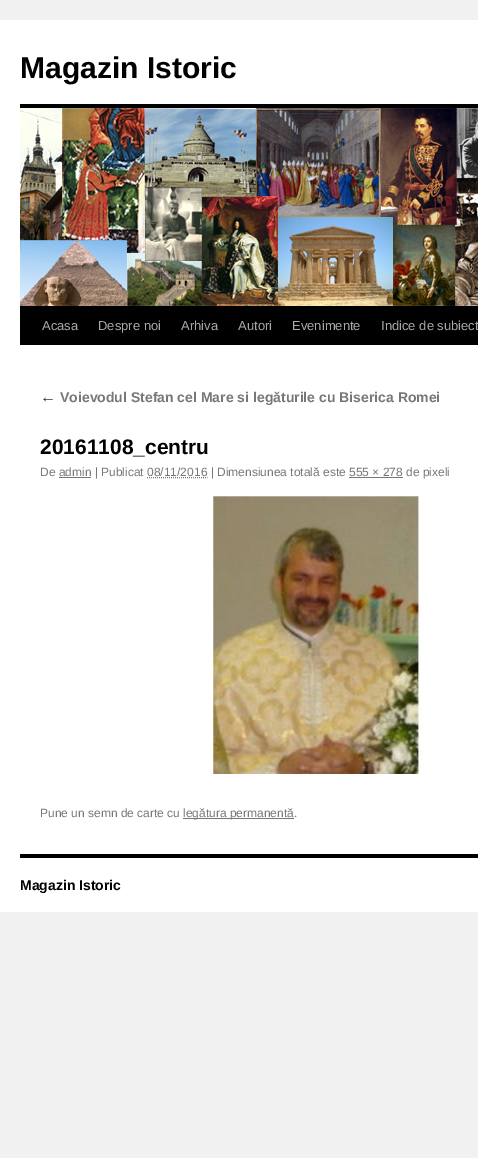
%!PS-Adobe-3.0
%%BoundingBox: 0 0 478 1158
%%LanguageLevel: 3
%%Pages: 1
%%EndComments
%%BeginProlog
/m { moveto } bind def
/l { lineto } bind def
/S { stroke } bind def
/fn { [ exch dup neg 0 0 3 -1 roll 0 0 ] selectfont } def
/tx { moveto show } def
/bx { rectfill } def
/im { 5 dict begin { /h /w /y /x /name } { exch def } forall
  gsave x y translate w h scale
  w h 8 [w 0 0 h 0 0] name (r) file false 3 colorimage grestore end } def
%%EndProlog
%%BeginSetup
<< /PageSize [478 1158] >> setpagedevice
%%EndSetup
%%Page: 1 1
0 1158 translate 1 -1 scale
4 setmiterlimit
0.945 setgray
0 0 478 1158 bx
1 setgray
0 20 478 892 bx
/LiberationSans-Bold 30 fn
0 setgray
(Magazin Istoric) 20 78 tx
20 104 458 4 bx
20 306 458 39 bx
(image0.raw) 20 108 458 198 im
/LiberationSans-Regular 13 fn
0.667 setgray
(Acasa) 42 330 tx
(Despre noi) 98 330 tx
(Arhiva) 181 330 tx
(Autori) 238 330 tx
(Evenimente) 292 330 tx
(Indice de subiect) 381 330 tx
/LiberationSerif-Italic 16 fn
0.2 setgray
(←) 40 402 tx
/LiberationSans-Bold 14 fn
0.467 setgray
(Voievodul Stefan cel Mare si legăturile cu Biserica Romei) 60 402 tx
/LiberationSans-Bold 21 fn
0 setgray
(20161108_centru) 40 454 tx
/LiberationSans-Regular 12 fn
0.467 setgray
(De admin | Publicat 08/11/2016 | Dimensiunea totală este 555 × 278 de pixeli) 40 476 tx
59 477 32 1 bx
[1 1] 0 setdash
147 477.5 m 207.5 477.5 l S
349 477 54 1 bx
(image1.raw) 213 496 208 278 im
(Pune un semn de carte cu) 40 817 tx
183 818 111 1 bx
(legătura permanentă.) 183 817 tx
0 setgray
20 854 458 4 bx
/LiberationSans-Bold 14 fn
(Magazin Istoric) 20 890 tx
showpage
%%EOF
